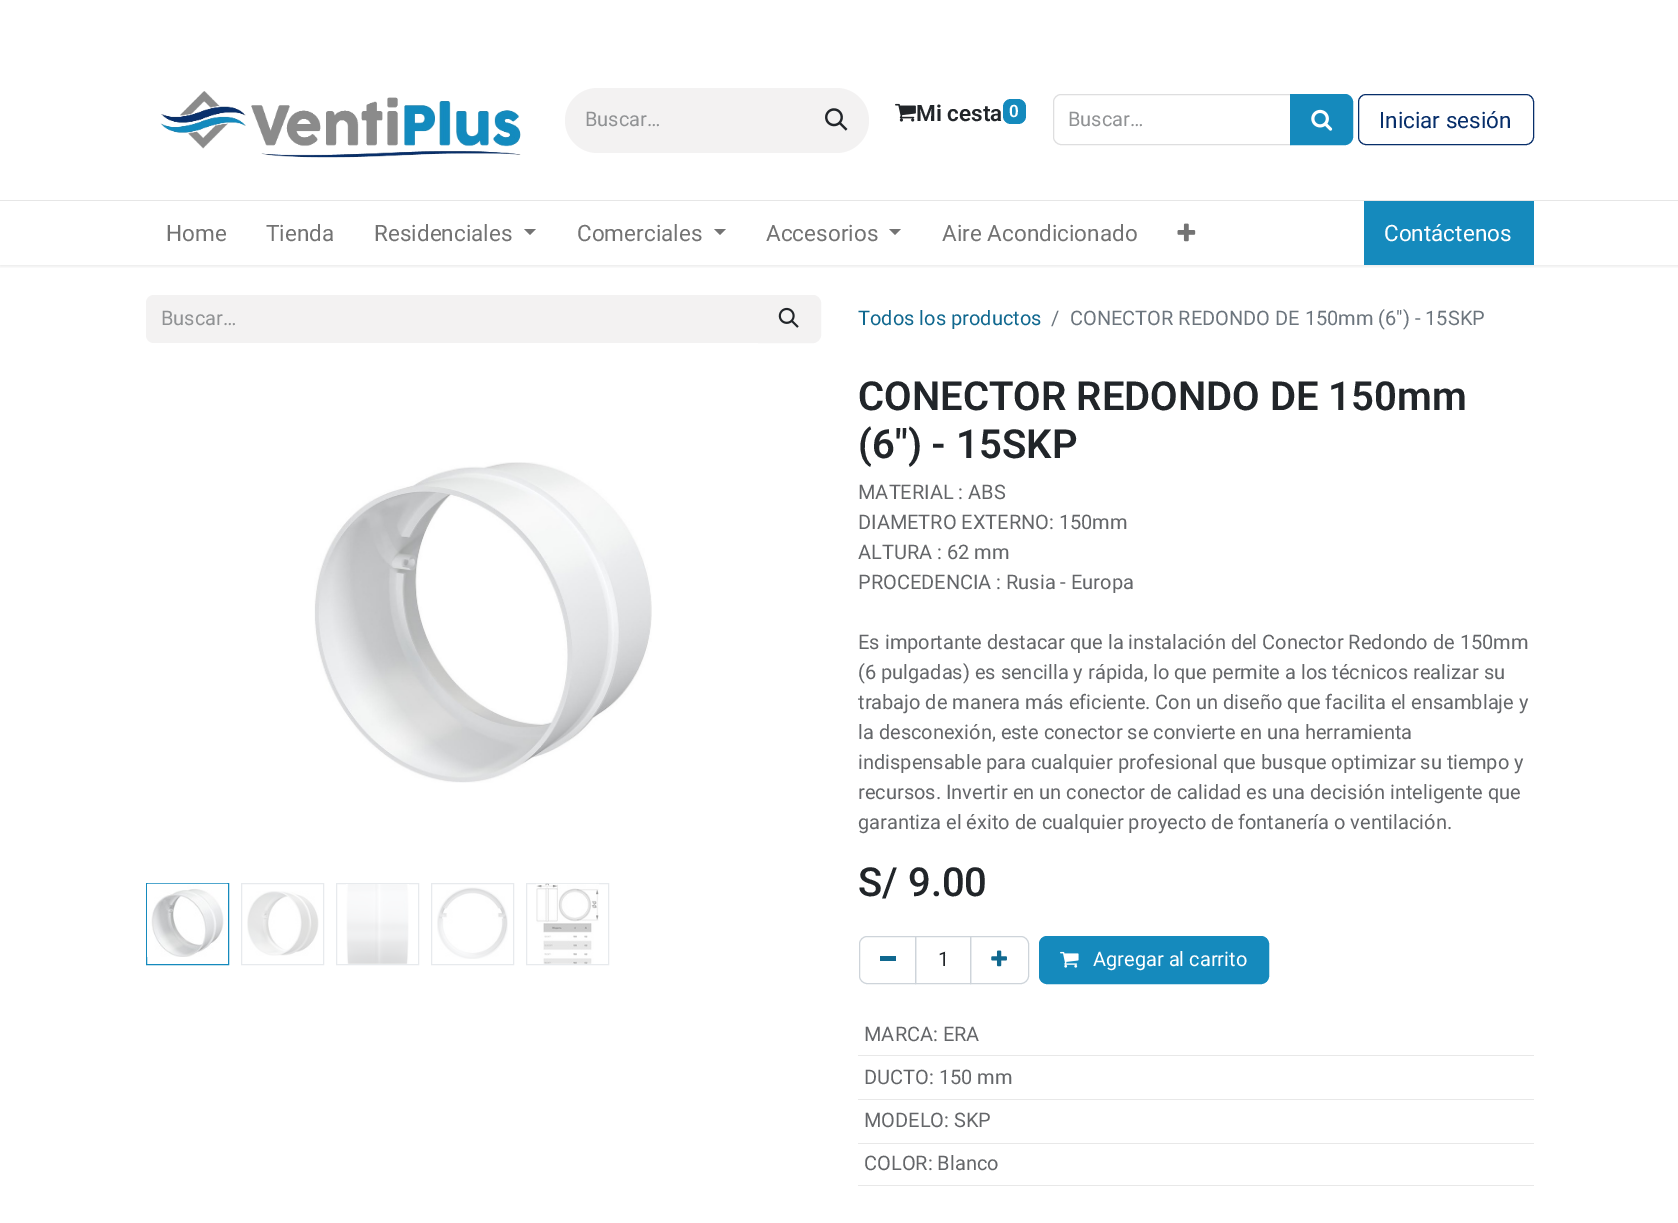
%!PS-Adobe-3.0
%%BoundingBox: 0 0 1678 1223
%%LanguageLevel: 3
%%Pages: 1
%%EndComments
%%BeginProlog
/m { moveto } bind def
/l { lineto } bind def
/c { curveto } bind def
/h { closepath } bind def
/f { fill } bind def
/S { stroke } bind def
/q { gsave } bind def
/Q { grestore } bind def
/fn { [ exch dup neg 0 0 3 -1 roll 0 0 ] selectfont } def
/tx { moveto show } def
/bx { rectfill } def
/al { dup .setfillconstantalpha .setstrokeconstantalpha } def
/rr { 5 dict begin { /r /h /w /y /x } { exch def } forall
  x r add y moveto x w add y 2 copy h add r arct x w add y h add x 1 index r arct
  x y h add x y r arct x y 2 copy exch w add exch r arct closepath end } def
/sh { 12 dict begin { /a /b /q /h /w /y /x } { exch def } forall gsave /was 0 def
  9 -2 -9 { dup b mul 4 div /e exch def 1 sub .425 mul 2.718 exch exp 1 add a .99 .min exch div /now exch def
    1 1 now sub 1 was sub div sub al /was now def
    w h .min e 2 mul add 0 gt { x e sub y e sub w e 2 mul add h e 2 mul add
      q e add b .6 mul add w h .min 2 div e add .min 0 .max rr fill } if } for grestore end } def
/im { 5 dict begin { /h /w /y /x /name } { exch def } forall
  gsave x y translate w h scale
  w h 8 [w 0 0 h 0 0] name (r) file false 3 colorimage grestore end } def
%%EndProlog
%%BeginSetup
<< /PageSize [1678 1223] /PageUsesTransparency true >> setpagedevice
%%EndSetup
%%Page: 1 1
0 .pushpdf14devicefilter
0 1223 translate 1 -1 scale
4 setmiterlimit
1 setgray
0 0 1678 1223 bx
q
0 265 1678 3 rectclip
0 setgray
0 1 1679 265 0 2 0.1 sh
Q
(image0.raw) 160 91 361 67 im
0.953 0.949 0.949 setrgbcolor
597.5 88 m 805 88 l 805 153 l 597.5 153 l 579.5 153 565 138.5 565 120.5 c 565 102.5 579.5 88 597.5 88 c h f
/Roboto-Regular 20 fn
0.565 0.573 0.58 setrgbcolor
(Buscar…) 585 126 tx
0.953 0.949 0.949 setrgbcolor
804 88 m 836.5 88 l 854.5 88 869 102.5 869 120.5 c 869 138.5 854.5 153 836.5 153 c 804 153 l h f
(image1.raw) 825 108 23 23 im
(image2.raw) 895 103 21 19 im
/Roboto-SemiBold 22.5 fn
0.129 0.145 0.161 setrgbcolor
(Mi cesta) 916 121 tx
0.082 0.541 0.741 setrgbcolor
1003 99 23 25 8 rr f
/Roboto-SemiBold 17 fn
1 setgray
(0) 1009 117 tx
0.871 0.871 0.875 setrgbcolor
1061 94.5 m 1290.5 94.5 l 1290.5 144.5 l 1061 144.5 l 1057 144.5 1053.5 141 1053.5 137 c 1053.5 102 l 1053.5 98 1057 94.5 1061 94.5 c h S
/Roboto-Regular 20 fn
0.565 0.573 0.58 setrgbcolor
(Buscar…) 1068 126 tx
0.082 0.541 0.741 setrgbcolor
1290.5 94.5 m 1345 94.5 l 1349 94.5 1352.5 98 1352.5 102 c 1352.5 137 l 1352.5 141 1349 144.5 1345 144.5 c 1290.5 144.5 l h q f Q
S
(image3.raw) 1311 109 22 22 im
0.027 0.18 0.416 setrgbcolor
1358.5 94.5 175 50 7.5 rr S
/Roboto-Regular 22.5 fn
(Iniciar sesión) 1379 128 tx
0.902 setgray
0 200 1678 1 bx
0.451 setgray
(Home) 166 241 tx
(Tienda) 266 241 tx
(Residenciales) 374 241 tx
524 229 m 536 229 l 530 235 l h f
(Comerciales) 577 241 tx
714 229 m 726 229 l 720 235 l h f
(Accesorios) 766 241 tx
889 229 m 901 229 l 895 235 l h f
(Aire Acondicionado) 942 241 tx
(image4.raw) 1177 223 19 19 im
0.082 0.541 0.741 setrgbcolor
1364 201 170 64 bx
1 setgray
(Contáctenos) 1384 241 tx
0.953 0.949 0.949 setrgbcolor
154 295 m 759 295 l 759 343 l 154 343 l 149.5 343 146 339.5 146 335 c 146 303 l 146 298.5 149.5 295 154 295 c h f
/Roboto-Regular 20 fn
0.565 0.573 0.58 setrgbcolor
(Buscar…) 161 325 tx
0.953 0.949 0.949 setrgbcolor
758.5 295.5 m 813 295.5 l 817 295.5 820.5 299 820.5 303 c 820.5 335 l 820.5 339 817 342.5 813 342.5 c 758.5 342.5 l h q f Q
S
(image5.raw) 778 307 21 21 im
0.063 0.408 0.561 setrgbcolor
(Todos los productos) 858 325 tx
0.424 0.459 0.49 setrgbcolor
(/) 1051 325 tx
(CONECTOR REDONDO DE 150mm \(6"\) - 15SKP) 1070 325 tx
(image6.raw) 314 462 338 321 im
0.082 0.541 0.741 setrgbcolor
146.5 883.5 82 81 rectstroke
(image7.raw) 147 883 81 74 im
0.906 0.918 0.929 setrgbcolor
241.5 883.5 82 81 rectstroke
(image8.raw) 247 891 72 65 im
336.5 883.5 82 81 rectstroke
(image9.raw) 346 884 63 80 im
431.5 883.5 82 81 rectstroke
(image10.raw) 437 887 71 72 im
526.5 883.5 82 81 rectstroke
(image11.raw) 536 883 63 81 im
/Roboto-SemiBold 40 fn
0.129 0.145 0.161 setrgbcolor
(CONECTOR REDONDO DE 150mm) 858 410 tx
(\(6"\) - 15SKP) 858 458 tx
/Roboto-Regular 20 fn
0.392 0.4 0.412 setrgbcolor
(MATERIAL : ABS) 858 499 tx
(DIAMETRO EXTERNO: 150mm) 858 529 tx
(ALTURA : 62 mm) 858 559 tx
(PROCEDENCIA : Rusia - Europa) 858 589 tx
(Es importante destacar que la instalación del Conector Redondo de 150mm) 858 649 tx
(\(6 pulgadas\) es sencilla y rápida, lo que permite a los técnicos realizar su) 858 679 tx
(trabajo de manera más eficiente. Con un diseño que facilita el ensamblaje y) 858 709 tx
(la desconexión, este conector se convierte en una herramienta) 858 739 tx
(indispensable para cualquier profesional que busque optimizar su tiempo y) 858 769 tx
(recursos. Invertir en un conector de calidad es una decisión inteligente que) 858 799 tx
(garantiza el éxito de cualquier proyecto de fontanería o ventilación.) 858 829 tx
/Roboto-Medium 40 fn
0.129 0.145 0.161 setrgbcolor
(S/ 9.00) 858 896 tx
0.808 0.831 0.855 setrgbcolor
915.5 936.5 55 47 rectstroke
867 936.5 m 915.5 936.5 l 915.5 983.5 l 867 983.5 l 863 983.5 859.5 980 859.5 976 c 859.5 944 l 859.5 940 863 936.5 867 936.5 c h S
0.063 0.408 0.561 setrgbcolor
880 956 16 5 bx
/Roboto-Regular 20 fn
0.129 0.145 0.161 setrgbcolor
(1) 938 966 tx
0.808 0.831 0.855 setrgbcolor
970.5 936.5 m 1021 936.5 l 1025 936.5 1028.5 940 1028.5 944 c 1028.5 976 l 1028.5 980 1025 983.5 1021 983.5 c 970.5 983.5 l h S
(image12.raw) 991 950 16 17 im
0.082 0.541 0.741 setrgbcolor
1039.5 936.5 229 47 7.5 rr q f Q
S
(image13.raw) 1060 951 19 17 im
1 setgray
(Agregar al carrito) 1093 966 tx
0.91 setgray
858 1055 676 1 bx
0.392 0.4 0.412 setrgbcolor
(MARCA: ERA) 864 1041 tx
0.91 setgray
858 1099 676 1 bx
0.392 0.4 0.412 setrgbcolor
(DUCTO: 150 mm) 864 1084 tx
0.91 setgray
858 1143 676 1 bx
0.392 0.4 0.412 setrgbcolor
(MODELO: SKP) 864 1127 tx
0.91 setgray
858 1185 676 1 bx
0.392 0.4 0.412 setrgbcolor
(COLOR: Blanco) 864 1170 tx
.poppdf14devicefilter showpage
%%EOF
